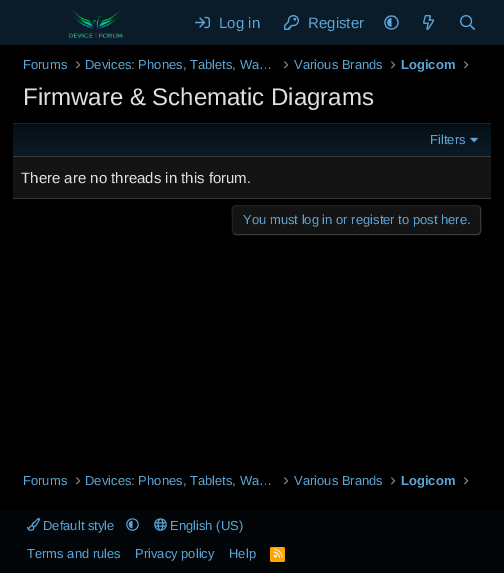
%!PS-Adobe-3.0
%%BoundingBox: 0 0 504 573
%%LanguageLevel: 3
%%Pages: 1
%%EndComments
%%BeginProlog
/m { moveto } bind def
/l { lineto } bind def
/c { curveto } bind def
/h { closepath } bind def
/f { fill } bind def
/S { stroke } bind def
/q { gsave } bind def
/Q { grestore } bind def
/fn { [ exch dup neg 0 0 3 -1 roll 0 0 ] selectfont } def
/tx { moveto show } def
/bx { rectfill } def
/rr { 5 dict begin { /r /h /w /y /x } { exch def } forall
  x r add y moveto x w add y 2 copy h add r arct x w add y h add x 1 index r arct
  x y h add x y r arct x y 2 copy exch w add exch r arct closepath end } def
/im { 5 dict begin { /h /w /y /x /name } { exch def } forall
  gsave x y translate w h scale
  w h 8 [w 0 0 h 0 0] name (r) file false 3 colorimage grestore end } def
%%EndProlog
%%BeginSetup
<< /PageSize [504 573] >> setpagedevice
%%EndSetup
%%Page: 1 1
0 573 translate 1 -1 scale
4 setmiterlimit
0 setgray
0 0 504 573 bx
0.039 0.11 0.161 setrgbcolor
0 0 504 45 bx
(image0.raw) 68 8 55 31 im
(image1.raw) 195 16 15 13 im
/LiberationSans-Regular 15 fn
0.361 0.647 0.839 setrgbcolor
(Log in) 219 28 tx
(image2.raw) 284 15 15 15 im
(Register) 308 28 tx
(image3.raw) 384 15 15 15 im
(image4.raw) 423 15 11 15 im
(image5.raw) 460 15 15 15 im
/LiberationSans-Regular 13 fn
(Forums) 23 69 tx
(image6.raw) 76 61 4 8 im
(Devices: Phones, Tablets, Wa…) 85 69 tx
(image6.raw) 284 61 4 8 im
(Various Brands) 294 69 tx
(image7.raw) 391 61 5 8 im
/LiberationSans-Bold 13 fn
(Logicom) 401 69 tx
(image7.raw) 464 61 5 8 im
/LiberationSans-Regular 24 fn
0.878 setgray
(Firmware & Schematic Diagrams) 23 105 tx
0.078 setgray
13 157 478 41 bx
0.141 setgray
13 123 478 1 bx
0.22 setgray
13 198 478 1 bx
q 13 124 m 491 124 l 491 156 l 13 156 l h clip newpath
<< /ShadingType 2 /ColorSpace /DeviceRGB /Coords [252 156 252 124] /Extend [true true] /Function << /FunctionType 2 /Domain [0 1] /C0 [0.039 0.11 0.161] /C1 [0.02 0.055 0.078] /N 1 >> >> shfill Q
13 156 478 1 bx
/LiberationSans-Regular 13 fn
0.361 0.647 0.839 setrgbcolor
(Filters) 430 144 tx
(image8.raw) 470 137 8 6 im
/LiberationSans-Regular 15 fn
0.878 setgray
(There are no threads in this forum.) 21 183 tx
0.078 setgray
232 205 249 30 4 rr f
0.231 setgray
479.5 206.5 m 481.5 208.5 480.5 217 480.5 220 c 480.5 223 482 232 479 234 c 477 234.5 l 236 234.5 l 233.5 233.5 l S
0.129 setgray
233.5 233.5 m 231.5 231.5 232.5 223 232.5 220 c 232.5 217 231 208 234 206 c 236 205.5 l 477 205.5 l 479.5 206.5 l S
/LiberationSans-Regular 13 fn
0.361 0.647 0.839 setrgbcolor
(You must log in or register to post here.) 243 224 tx
(Forums) 23 485 tx
(image6.raw) 76 477 4 8 im
(Devices: Phones, Tablets, Wa…) 85 485 tx
(image6.raw) 284 477 4 8 im
(Various Brands) 294 485 tx
(image7.raw) 391 477 5 8 im
/LiberationSans-Bold 13 fn
(Logicom) 401 485 tx
(image7.raw) 464 477 5 8 im
0.008 0.024 0.031 setrgbcolor
0 511 504 62 bx
(image9.raw) 27 518 13 13 im
/LiberationSans-Regular 13 fn
0.361 0.647 0.839 setrgbcolor
(Default style) 43 530 tx
(image10.raw) 126 518 13 13 im
(image11.raw) 154 518 13 13 im
(English \(US\)) 170 530 tx
(Terms and rules) 27 558 tx
(Privacy policy) 135 558 tx
(Help) 229 558 tx
1 0.647 0 setrgbcolor
270 547 15 15 2 rr f
(image12.raw) 273 548 10 10 im
showpage
%%EOF
